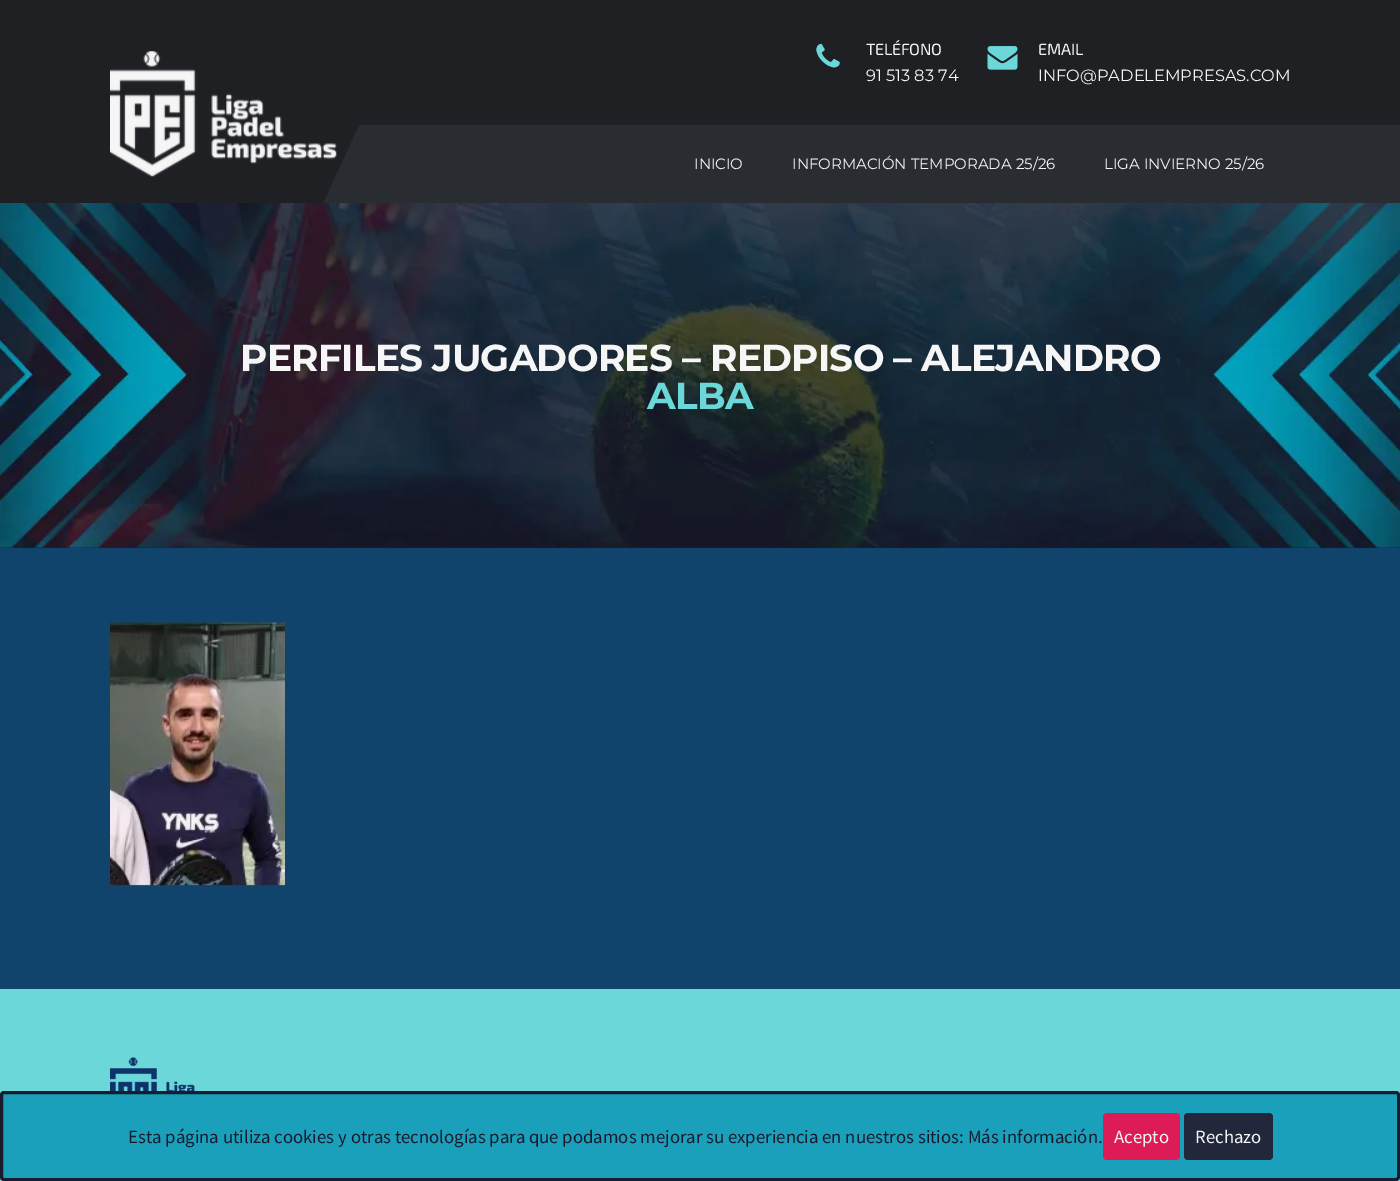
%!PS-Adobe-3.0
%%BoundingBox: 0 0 1400 1181
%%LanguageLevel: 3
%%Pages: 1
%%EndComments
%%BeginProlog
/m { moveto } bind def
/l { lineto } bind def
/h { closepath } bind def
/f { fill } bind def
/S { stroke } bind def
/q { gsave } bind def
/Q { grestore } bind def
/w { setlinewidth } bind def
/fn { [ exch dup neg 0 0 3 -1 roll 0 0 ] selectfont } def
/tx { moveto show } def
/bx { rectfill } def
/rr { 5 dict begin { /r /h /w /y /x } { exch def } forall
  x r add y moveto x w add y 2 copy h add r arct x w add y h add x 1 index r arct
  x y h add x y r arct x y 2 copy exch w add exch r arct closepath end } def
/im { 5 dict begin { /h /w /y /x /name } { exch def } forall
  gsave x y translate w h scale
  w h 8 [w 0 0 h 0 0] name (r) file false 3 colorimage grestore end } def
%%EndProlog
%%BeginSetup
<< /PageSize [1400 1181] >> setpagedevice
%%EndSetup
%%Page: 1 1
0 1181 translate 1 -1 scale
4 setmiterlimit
0.063 0.267 0.424 setrgbcolor
0 0 1400 1181 bx
0.118 0.125 0.141 setrgbcolor
0 0 1400 203 bx
(image0.raw) 816 43 24 25 im
/Exo2-Regular 16.25 fn
0.965 setgray
866 55 m -0.25 0 (TELÉFONO) ashow
/Montserrat-Regular 16.25 fn
(91 513 83 74) 866 81 tx
(image1.raw) 987 46 31 24 im
/Exo2-Regular 16.25 fn
1038 55 m -0.25 0 (EMAIL) ashow
/Montserrat-Regular 16.25 fn
(INFO@PADELEMPRESAS.COM) 1038 81 tx
0.161 0.173 0.188 setrgbcolor
323 125 1077 78 bx
0.118 0.125 0.141 setrgbcolor
97 125 m 359 125 l 323 203 l 61 203 l h f
(image2.raw) 110 51 227 126 im
/Montserrat-Regular 15 fn
0.965 setgray
(INICIO) 694 169 tx
(INFORMACIÓN TEMPORADA 25/26) 792 169 tx
(LIGA INVIERNO 25/26) 1104 169 tx
0.118 0.125 0.141 setrgbcolor
0 546 1400 2 bx
(image3.raw) 0 203 1400 345 im
/Montserrat-Bold 37.5 fn
0.965 setgray
240 371 m -0.75 0 (PERFILES JUGADORES – REDPISO – ALEJANDRO) ashow
0.42 0.843 0.851 setrgbcolor
647 409 m -0.75 0 (ALBA) ashow
(image4.raw) 110 622 175 264 im
0 989 1400 192 bx
(image5.raw) 110 1057 85 34 im
0.102 0.627 0.733 setrgbcolor
1.5 1092.5 1397 87 2.5 rr q f Q
0.098 0.11 0.184 setrgbcolor
3 w
S
/SourceSansPro-Regular 18.75 fn
(Esta página utiliza cookies y otras tecnologías para que podamos mejorar su experiencia en nuestros sitios: Más información.) 128 1143 tx
0.867 0.106 0.337 setrgbcolor
1103 1113 77 47 4 rr f
0.965 setgray
(Acepto) 1114 1143 tx
0.133 0.153 0.231 setrgbcolor
1184 1113 89 47 4 rr f
0.965 setgray
(Rechazo) 1195 1143 tx
showpage
%%EOF
